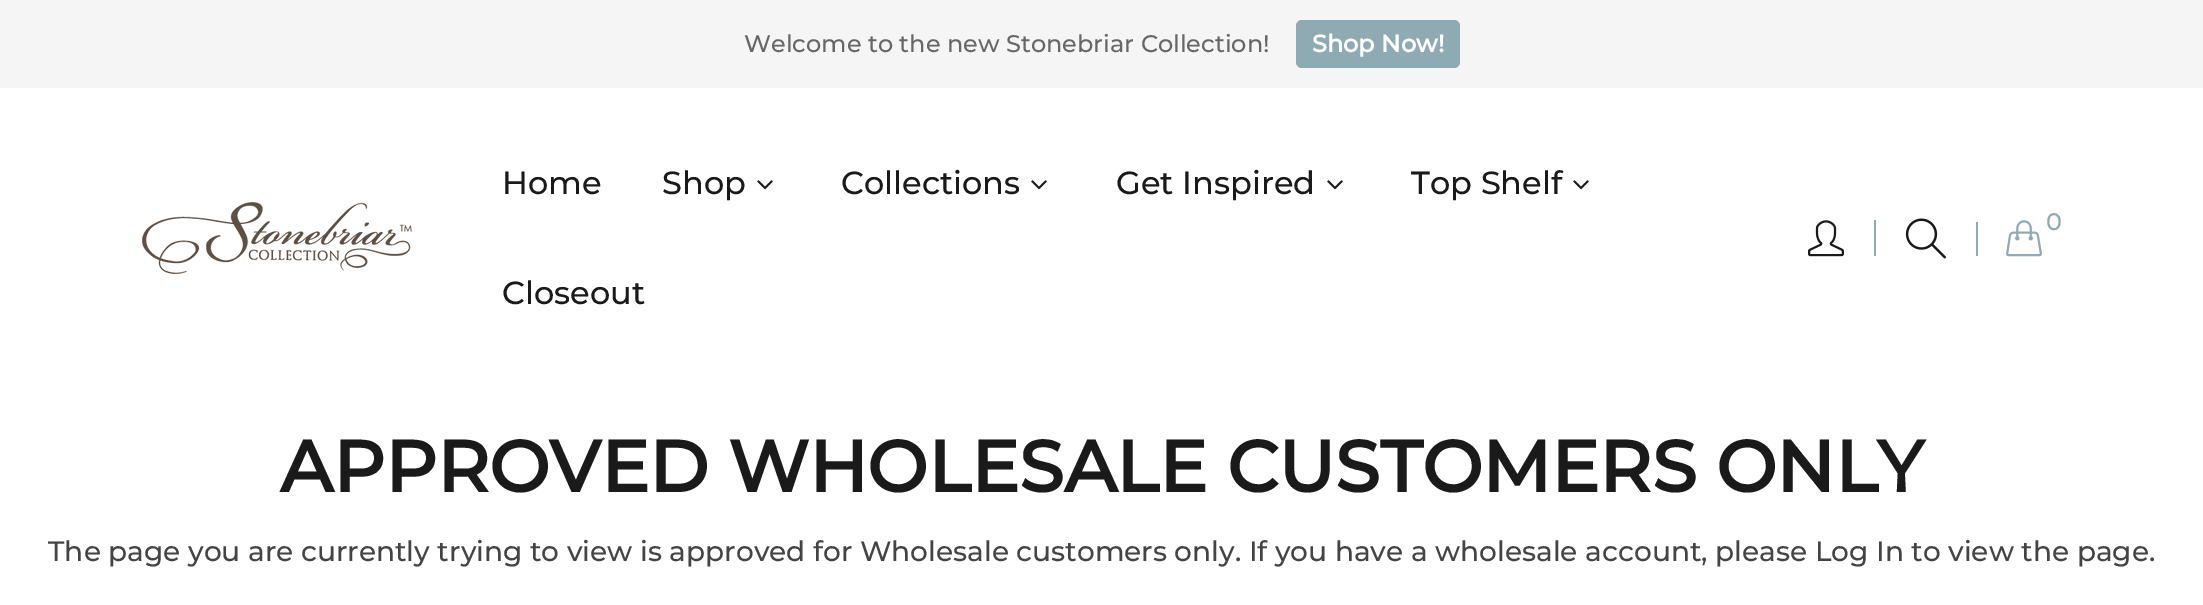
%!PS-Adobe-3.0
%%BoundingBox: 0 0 2203 605
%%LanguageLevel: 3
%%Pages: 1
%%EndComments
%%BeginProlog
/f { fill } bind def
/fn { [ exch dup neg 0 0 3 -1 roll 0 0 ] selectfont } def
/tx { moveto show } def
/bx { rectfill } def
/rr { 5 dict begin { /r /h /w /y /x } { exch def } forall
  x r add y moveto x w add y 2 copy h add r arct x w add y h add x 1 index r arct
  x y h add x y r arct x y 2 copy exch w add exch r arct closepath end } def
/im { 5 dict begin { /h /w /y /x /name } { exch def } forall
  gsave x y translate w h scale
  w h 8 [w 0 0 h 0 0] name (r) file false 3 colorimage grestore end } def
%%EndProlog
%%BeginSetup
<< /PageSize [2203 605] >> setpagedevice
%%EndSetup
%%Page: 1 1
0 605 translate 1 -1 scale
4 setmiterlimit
1 setgray
0 0 2203 605 bx
0.961 setgray
0 0 2203 88 bx
/Montserrat-Thin 24 fn
0.4 setgray
(Welcome to the new Stonebriar Collection!) 744 52 tx
0.557 0.671 0.706 setrgbcolor
1296 20 164 48 6 rr f
/Montserrat-Bold 24 fn
1 setgray
(Shop Now!) 1312 52 tx
(image0.raw) 142 202 270 72 im
/Montserrat-Thin 32 fn
0.102 setgray
(Home) 502 194 tx
(Shop) 662 194 tx
(image1.raw) 757 180 16 10 im
(Collections) 841 194 tx
(image1.raw) 1031 180 16 10 im
(Get Inspired) 1116 194 tx
(image1.raw) 1327 180 16 10 im
(Top Shelf) 1411 194 tx
(image1.raw) 1573 180 16 10 im
(Closeout) 502 304 tx
0.557 0.671 0.706 setrgbcolor
1874 220 2 36 bx
(image2.raw) 1808 220 36 37 im
(image3.raw) 1905 218 41 41 im
1976 222 2 34 bx
(image4.raw) 2006 220 36 37 im
/Montserrat-Thin 24 fn
(0) 2046 230 tx
/Montserrat-Bold 72 fn
0.102 setgray
(APPROVED WHOLESALE CUSTOMERS ONLY) 280 492 tx
/Montserrat-Thin 28 fn
0.267 setgray
(The page you are currently trying to view is approved for Wholesale customers only. If you have a wholesale account, please Log In to view the page.) 48 561 tx
showpage
%%EOF
